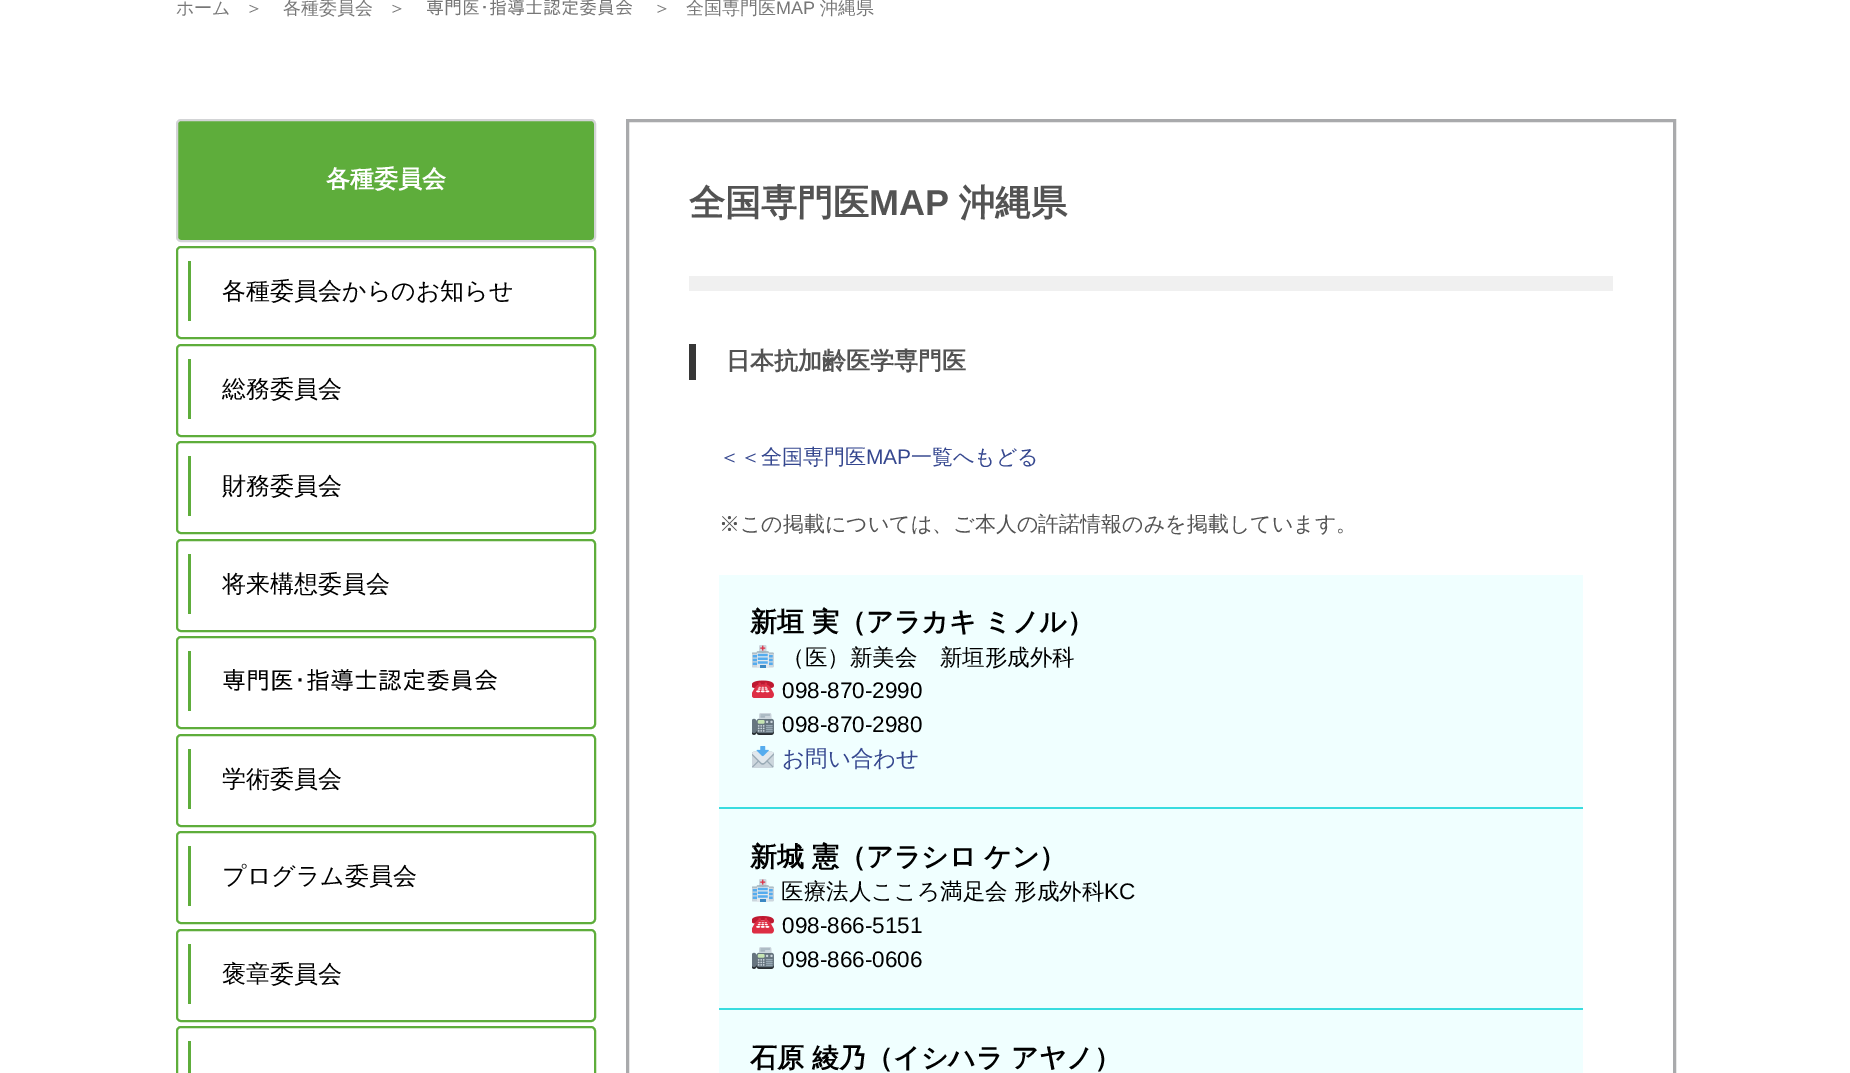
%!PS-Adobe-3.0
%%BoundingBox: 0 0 1850 1073
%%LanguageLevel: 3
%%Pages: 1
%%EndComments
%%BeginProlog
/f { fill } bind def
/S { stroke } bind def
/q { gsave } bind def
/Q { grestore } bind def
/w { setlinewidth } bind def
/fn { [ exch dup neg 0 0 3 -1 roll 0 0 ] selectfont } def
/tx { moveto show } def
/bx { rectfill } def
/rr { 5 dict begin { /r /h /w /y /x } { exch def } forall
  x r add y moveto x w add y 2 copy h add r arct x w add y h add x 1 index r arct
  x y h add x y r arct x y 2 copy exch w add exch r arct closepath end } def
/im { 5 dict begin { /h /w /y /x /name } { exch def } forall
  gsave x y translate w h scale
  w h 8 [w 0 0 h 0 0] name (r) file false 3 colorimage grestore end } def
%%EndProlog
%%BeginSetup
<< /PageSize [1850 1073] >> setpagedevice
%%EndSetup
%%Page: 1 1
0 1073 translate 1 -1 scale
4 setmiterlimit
1 setgray
0 0 1850 1073 bx
/WenQuanYiZenHei-Medium 18 fn
0.467 setgray
(ホーム) 176 14 tx
(＞) 245 14 tx
(各種委員会) 283 14 tx
(＞) 388 14 tx
/IPAPGothic-Regular 18 fn
(専門医･指導士認定委員会) 426 14 tx
/WenQuanYiZenHei-Medium 18 fn
(＞) 653 14 tx
(全国専門医) 686 14 tx
/LiberationSans-Regular 18 fn
(MAP) 776 14 tx
/WenQuanYiZenHei-Medium 18 fn
(沖縄県) 820 14 tx
0.369 0.678 0.231 setrgbcolor
177 120 418 121 4 rr q f Q
0.827 0.831 0.839 setrgbcolor
2 w
S
/WenQuanYiZenHei-Bold 24 fn
1 setgray
(各種委員会) 326 187 tx
0.369 0.678 0.231 setrgbcolor
177 247 418 91 4 rr S
188 261 3 60 bx
/WenQuanYiZenHei-Medium 24 fn
0 setgray
(各種委員会からのお知らせ) 222 299 tx
0.369 0.678 0.231 setrgbcolor
177 345 418 91 4 rr S
188 359 3 60 bx
0 setgray
(総務委員会) 222 397 tx
0.369 0.678 0.231 setrgbcolor
177 442 418 91 4 rr S
188 456 3 60 bx
0 setgray
(財務委員会) 222 494 tx
0.369 0.678 0.231 setrgbcolor
177 540 418 91 4 rr S
188 554 3 60 bx
0 setgray
(将来構想委員会) 222 592 tx
0.369 0.678 0.231 setrgbcolor
177 637 418 91 4 rr S
188 651 3 60 bx
/IPAPGothic-Regular 24 fn
0 setgray
(専門医･指導士認定委員会) 222 689 tx
0.369 0.678 0.231 setrgbcolor
177 735 418 91 4 rr S
188 749 3 60 bx
/WenQuanYiZenHei-Medium 24 fn
0 setgray
(学術委員会) 222 787 tx
0.369 0.678 0.231 setrgbcolor
177 832 418 91 4 rr S
188 846 3 60 bx
0 setgray
(プログラム委員会) 222 884 tx
0.369 0.678 0.231 setrgbcolor
177 930 418 91 4 rr S
188 944 3 60 bx
0 setgray
(褒章委員会) 222 982 tx
0.369 0.678 0.231 setrgbcolor
177 1027 418 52 4 rr S
188 1041 3 32 bx
0.663 0.667 0.675 setrgbcolor
3 w
627.5 120.5 1047 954 rectstroke
0.941 setgray
689 276 924 15 bx
/WenQuanYiZenHei-Bold 36 fn
0.325 setgray
(全国専門医) 689 215 tx
/LiberationSans-Bold 36 fn
(MAP) 869 215 tx
/WenQuanYiZenHei-Bold 36 fn
(沖縄県) 959 215 tx
0.216 setgray
689 344 7 36 bx
/WenQuanYiZenHei-Bold 24 fn
0.325 setgray
(日本抗加齢医学専門医) 726 369 tx
/WenQuanYiZenHei-Medium 21 fn
0.208 0.278 0.561 setrgbcolor
(＜＜全国専門医) 719 464 tx
/LiberationSans-Regular 21 fn
(MAP) 866 464 tx
/WenQuanYiZenHei-Medium 21 fn
(一覧へもどる) 911 464 tx
0.325 setgray
(※この掲載については、ご本人の許諾情報のみを掲載しています。) 719 531 tx
0.941 1 1 setrgbcolor
719 575 864 232 bx
0.224 0.863 0.875 setrgbcolor
719 807 864 2 bx
/WenQuanYiZenHei-Bold 27 fn
0 setgray
(新垣) 750 631 tx
(実（アラカキ) 812 631 tx
(ミノル）) 984 631 tx
(image0.raw) 752 645 22 23 im
/WenQuanYiZenHei-Medium 22.5 fn
(（医）新美会　新垣形成外科) 782 665 tx
(image1.raw) 752 680 22 18 im
/LiberationSans-Regular 22.5 fn
(098-870-2990) 782 698 tx
(image2.raw) 752 713 22 22 im
(098-870-2980) 782 732 tx
(image3.raw) 752 746 22 22 im
/WenQuanYiZenHei-Medium 22.5 fn
0.208 0.278 0.561 setrgbcolor
(お問い合わせ) 782 766 tx
0.941 1 1 setrgbcolor
719 809 864 199 bx
0.224 0.863 0.875 setrgbcolor
719 1008 864 2 bx
/WenQuanYiZenHei-Bold 27 fn
0 setgray
(新城) 750 866 tx
(憲（アラシロ) 812 866 tx
(ケン）) 984 866 tx
(image0.raw) 752 879 22 23 im
/WenQuanYiZenHei-Medium 22.5 fn
(医療法人こころ満足会 形成外科) 781 899 tx
/LiberationSans-Regular 22.5 fn
(KC) 1104 899 tx
(image4.raw) 752 916 22 18 im
(098-866-5151) 782 933 tx
(image2.raw) 752 947 22 22 im
(098-866-0606) 782 967 tx
0.941 1 1 setrgbcolor
719 1010 864 63 bx
/WenQuanYiZenHei-Bold 27 fn
0 setgray
(石原) 750 1067 tx
(綾乃（イシハラ) 812 1067 tx
(アヤノ）) 1011 1067 tx
showpage
%%EOF
